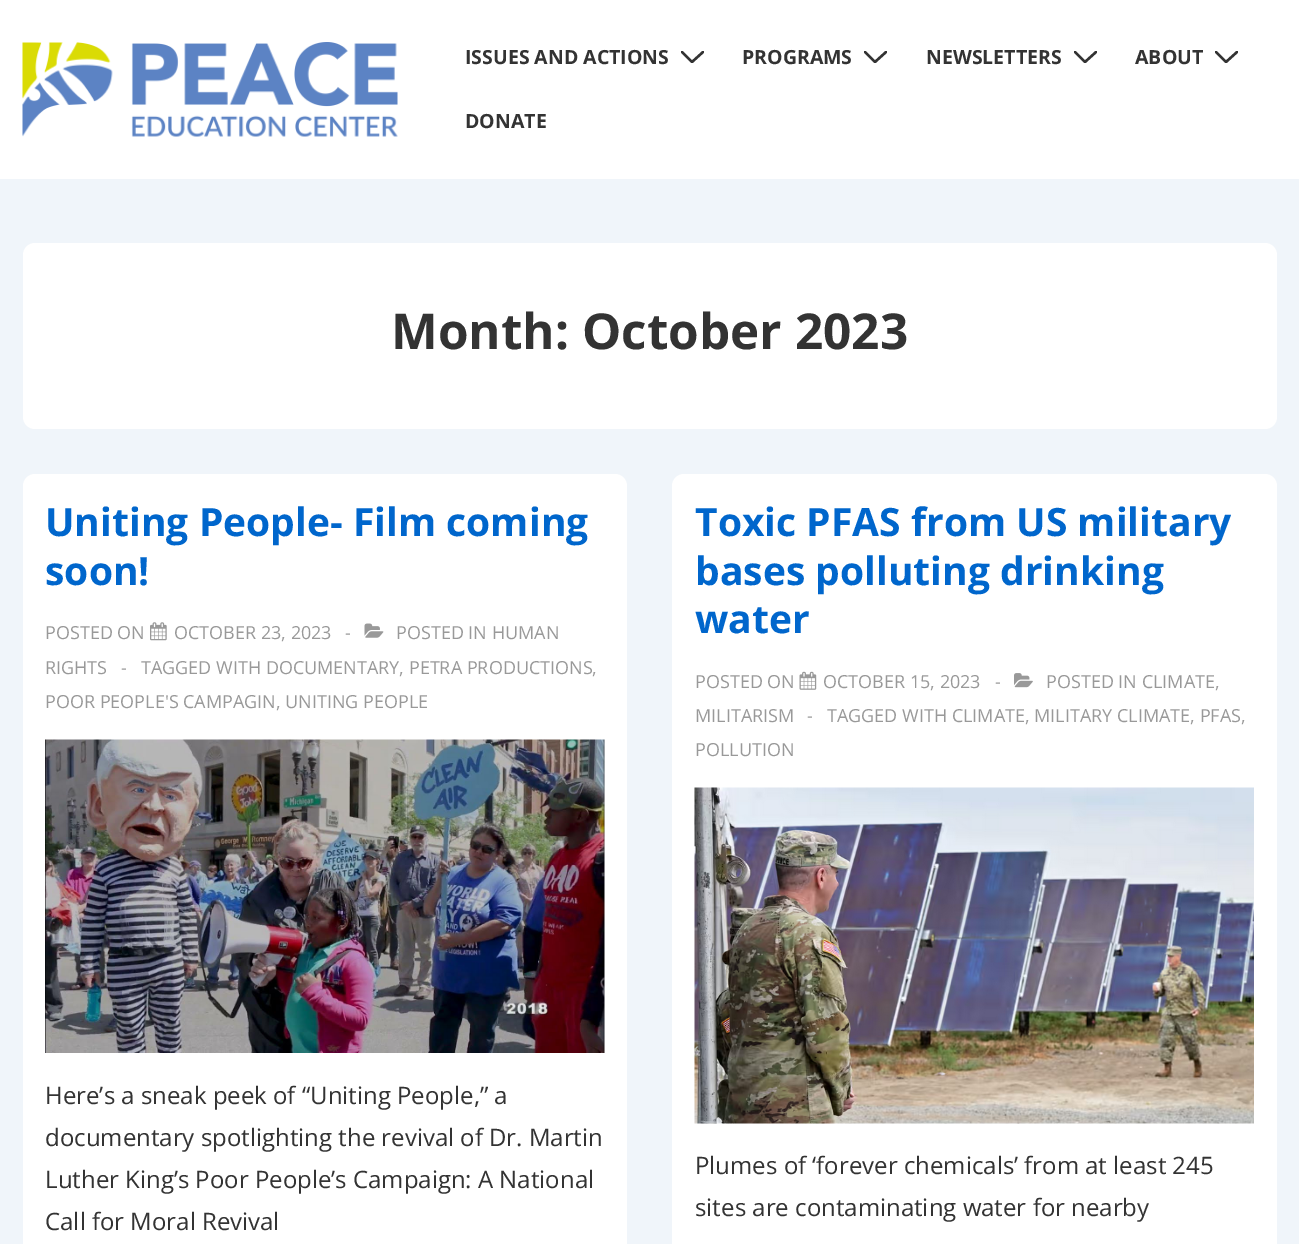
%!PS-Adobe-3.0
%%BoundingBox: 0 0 1299 1244
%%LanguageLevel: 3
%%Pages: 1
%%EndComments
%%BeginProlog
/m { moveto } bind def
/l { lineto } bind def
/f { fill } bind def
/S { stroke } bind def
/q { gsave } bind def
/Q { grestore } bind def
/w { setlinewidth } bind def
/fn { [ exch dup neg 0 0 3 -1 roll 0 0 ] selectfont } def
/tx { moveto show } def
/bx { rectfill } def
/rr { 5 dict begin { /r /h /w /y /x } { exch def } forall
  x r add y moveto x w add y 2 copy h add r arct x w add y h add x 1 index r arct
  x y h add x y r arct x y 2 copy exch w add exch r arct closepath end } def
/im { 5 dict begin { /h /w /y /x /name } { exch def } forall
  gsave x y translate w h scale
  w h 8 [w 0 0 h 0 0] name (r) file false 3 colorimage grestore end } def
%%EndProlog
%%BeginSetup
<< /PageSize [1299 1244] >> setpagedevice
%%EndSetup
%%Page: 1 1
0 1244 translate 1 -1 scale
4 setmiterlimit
0.941 0.961 0.98 setrgbcolor
0 0 1299 1244 bx
1 setgray
0 0 1299 179 bx
(image0.raw) 22 42 376 95 im
/OpenSans-Bold 19.5 fn
0.2 setgray
(ISSUES AND ACTIONS) 465 64 tx
q
681 51 23 12 rectclip
2.4 w
1 setlinecap
682 52 m 692 62 l 703 52 l S
Q
(PROGRAMS) 742 64 tx
q
864 51 23 12 rectclip
2.4 w
1 setlinecap
865 52 m 875 62 l 886 52 l S
Q
(NEWSLETTERS) 926 64 tx
q
1074 51 23 12 rectclip
2.4 w
1 setlinecap
1075 52 m 1085 62 l 1096 52 l S
Q
(ABOUT) 1135 64 tx
q
1215 51 23 12 rectclip
2.4 w
1 setlinecap
1216 52 m 1226 62 l 1237 52 l S
Q
(DONATE) 465 128 tx
1 setgray
23 243 1254 186 12 rr f
/OpenSans-Bold 49.5 fn
0.2 setgray
(Month: October 2023) 391 349 tx
1 setgray
23 474 604 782 12 rr f
/OpenSans-Bold 39 fn
0 0.4 0.8 setrgbcolor
(Uniting People- Film coming) 45 536 tx
(soon!) 45 585 tx
/OpenSans-Regular 18 fn
0.6 setgray
(POSTED ON) 45 639 tx
(image1.raw) 150 622 17 19 im
(OCTOBER 23, 2023) 174 639 tx
(-) 345 639 tx
(image2.raw) 364 623 20 15 im
(POSTED IN HUMAN) 396 639 tx
(RIGHTS) 45 674 tx
(-) 121 674 tx
(TAGGED WITH DOCUMENTARY, PETRA PRODUCTIONS,) 141 674 tx
(POOR PEOPLE'S CAMPAGIN, UNITING PEOPLE) 45 708 tx
(image3.raw) 45 739 560 314 im
/OpenSans-Regular 24 fn
0.2 setgray
(Here’s a sneak peek of “Uniting People,” a) 45 1104 tx
(documentary spotlighting the revival of Dr. Martin) 45 1146 tx
(Luther King’s Poor People’s Campaign: A National) 45 1188 tx
(Call for Moral Revival) 45 1230 tx
1 setgray
672 474 605 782 12 rr f
/OpenSans-Bold 39 fn
0 0.4 0.8 setrgbcolor
(Toxic PFAS from US military) 695 536 tx
(bases polluting drinking) 695 585 tx
(water) 695 633 tx
/OpenSans-Regular 18 fn
0.6 setgray
(POSTED ON) 695 688 tx
(image4.raw) 799 671 18 19 im
(OCTOBER 15, 2023) 823 688 tx
(-) 995 688 tx
(image5.raw) 1014 673 19 15 im
(POSTED IN CLIMATE,) 1046 688 tx
(MILITARISM) 695 722 tx
(-) 807 722 tx
(TAGGED WITH CLIMATE, MILITARY CLIMATE, PFAS,) 827 722 tx
(POLLUTION) 695 756 tx
(image6.raw) 694 787 560 337 im
/OpenSans-Regular 24 fn
0.2 setgray
(Plumes of ‘forever chemicals’ from at least 245) 695 1174 tx
(sites are contaminating water for nearby) 695 1216 tx
showpage
%%EOF
